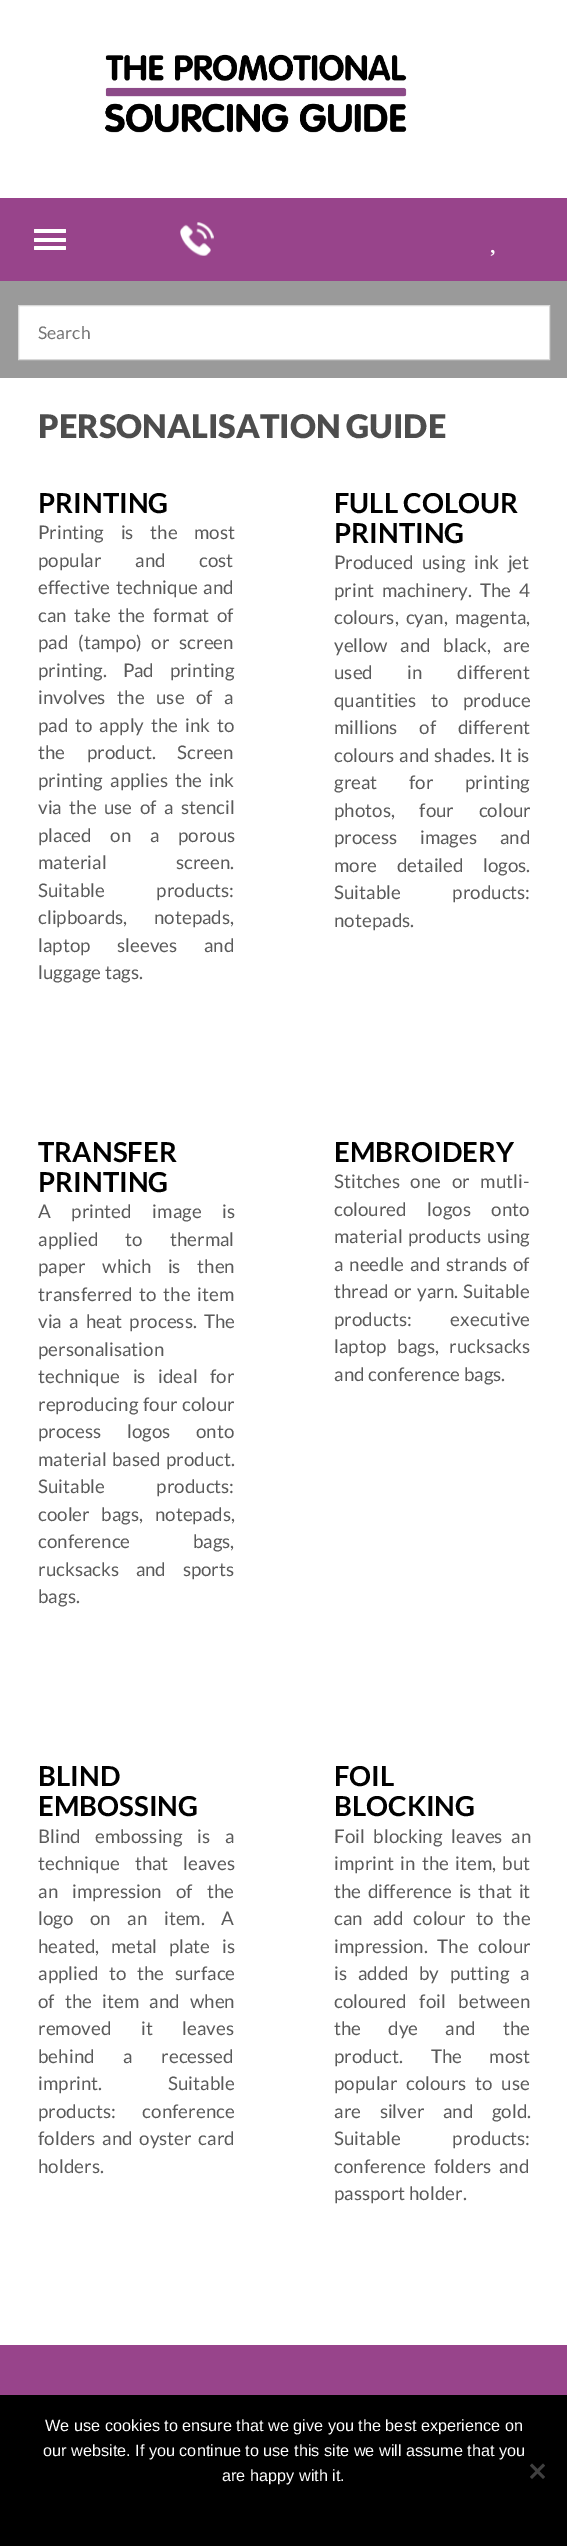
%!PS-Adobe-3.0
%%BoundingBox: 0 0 567 2546
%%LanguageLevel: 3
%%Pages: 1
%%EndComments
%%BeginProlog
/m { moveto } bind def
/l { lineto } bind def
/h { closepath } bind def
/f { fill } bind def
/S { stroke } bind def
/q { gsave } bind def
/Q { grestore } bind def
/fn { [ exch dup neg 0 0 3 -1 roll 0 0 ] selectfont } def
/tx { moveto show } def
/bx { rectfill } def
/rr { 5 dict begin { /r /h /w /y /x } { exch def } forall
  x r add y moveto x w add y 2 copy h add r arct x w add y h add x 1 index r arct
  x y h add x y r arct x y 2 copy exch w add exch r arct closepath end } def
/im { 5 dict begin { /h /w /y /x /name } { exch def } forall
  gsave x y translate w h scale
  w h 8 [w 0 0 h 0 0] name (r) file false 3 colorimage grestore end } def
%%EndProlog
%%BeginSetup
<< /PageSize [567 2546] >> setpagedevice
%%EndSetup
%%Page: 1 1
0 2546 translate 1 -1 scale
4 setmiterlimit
1 setgray
0 0 567 2546 bx
(image0.raw) 105 54 302 79 im
0.596 0.267 0.545 setrgbcolor
0 198 567 83 bx
1 setgray
34 229 32 4 1 rr f
34 238 32 4 1 rr f
34 246 32 4 1 rr f
(image1.raw) 180 222 34 34 im
(image2.raw) 490 249 5 7 im
0.604 setgray
0 281 567 97 bx
1 setgray
18.5 305.5 m 549.5 305.5 l 549.5 359.5 l 18.5 359.5 l h q f Q
0.847 setgray
S
/Lato-Regular 17.5 fn
0.459 setgray
(Search) 38 339 tx
/Lato-Black 32.5 fn
0.302 setgray
(PERSONALISATION GUIDE) 38 438 tx
/Lato-Bold 27.5 fn
0 setgray
(PRINTING) 38 513 tx
/Lato-Regular 18.75 fn
0.353 setgray
38 539 m 13 0 32 (Printing is the most) widthshow
38 567 m 30 0 32 (popular and cost) widthshow
38 594 m 2 0 32 (effective technique and) widthshow
38 622 m 4 0 32 (can take the format of) widthshow
38 649 m 6 0 32 (pad \(tampo\) or screen) widthshow
38 677 m 12 0 32 (printing. Pad printing) widthshow
38 704 m 8 0 32 (involves the use of a) widthshow
38 732 m 3.25 0 32 (pad to apply the ink to) widthshow
38 759 m 18 0 32 (the product. Screen) widthshow
38 787 m 3.5 0 32 (printing applies the ink) widthshow
38 814 m 3.75 0 32 (via the use of a stencil) widthshow
38 842 m 15 0 32 (placed on a porous) widthshow
38 869 m 66 0 32 (material screen.) widthshow
38 897 m 48 0 32 (Suitable products:) widthshow
38 924 m 23 0 32 (clipboards, notepads,) widthshow
38 952 m 23 0 32 (laptop sleeves and) widthshow
(luggage tags.) 38 979 tx
/Lato-Bold 27.5 fn
0 setgray
(FULL COLOUR) 334 513 tx
(PRINTING) 334 543 tx
/Lato-Regular 18.75 fn
0.353 setgray
334 569 m 5 0 32 (Produced using ink jet) widthshow
334 597 m 4 0 32 (print machinery. The 4) widthshow
334 624 m 3.5 0 32 (colours, cyan, magenta,) widthshow
334 652 m 9 0 32 (yellow and black, are) widthshow
334 679 m 31 0 32 (used in different) widthshow
334 707 m 11 0 32 (quantities to produce) widthshow
334 734 m 18 0 32 (millions of different) widthshow
334 762 m 1 0 32 (colours and shades. It is) widthshow
334 789 m 28 0 32 (great for printing) widthshow
334 817 m 21 0 32 (photos, four colour) widthshow
334 844 m 19 0 32 (process images and) widthshow
334 872 m 16 0 32 (more detailed logos.) widthshow
334 899 m 48 0 32 (Suitable products:) widthshow
(notepads.) 334 927 tx
/Lato-Bold 27.5 fn
0 setgray
(TRANSFER) 38 1162 tx
(PRINTING) 38 1192 tx
/Lato-Regular 18.75 fn
0.353 setgray
38 1218 m 17 0 32 (A printed image is) widthshow
38 1246 m 23.5 0 32 (applied to thermal) widthshow
38 1273 m 13 0 32 (paper which is then) widthshow
38 1301 m 3.25 0 32 (transferred to the item) widthshow
38 1328 m 3.5 0 32 (via a heat process. The) widthshow
(personalisation) 38 1356 tx
38 1383 m 9 0 32 (technique is ideal for) widthshow
38 1411 m 1 0 32 (reproducing four colour) widthshow
38 1438 m 22 0 32 (process logos onto) widthshow
38 1466 m 2 0 32 (material based product.) widthshow
38 1493 m 48 0 32 (Suitable products:) widthshow
38 1521 m 8 0 32 (cooler bags, notepads,) widthshow
38 1548 m 59 0 32 (conference bags,) widthshow
38 1576 m 13 0 32 (rucksacks and sports) widthshow
(bags.) 38 1603 tx
/Lato-Bold 27.5 fn
0 setgray
(EMBROIDERY) 334 1162 tx
/Lato-Regular 18.75 fn
0.353 setgray
334 1188 m 7 0 32 (Stitches one or mutli-) widthshow
334 1216 m 17 0 32 (coloured logos onto) widthshow
334 1243 m 2 0 32 (material products using) widthshow
334 1271 m 2 0 32 (a needle and strands of) widthshow
334 1298 m 1.5 0 32 (thread or yarn. Suitable) widthshow
334 1326 m 35 0 32 (products: executive) widthshow
334 1353 m 7 0 32 (laptop bags, rucksacks) widthshow
(and conference bags.) 334 1381 tx
/Lato-Bold 27.5 fn
0 setgray
(BLIND) 38 1786 tx
(EMBOSSING) 38 1816 tx
/Lato-Regular 18.75 fn
0.353 setgray
38 1843 m 11 0 32 (Blind embossing is a) widthshow
38 1870 m 11 0 32 (technique that leaves) widthshow
38 1898 m 10.5 0 32 (an impression of the) widthshow
38 1925 m 13 0 32 (logo on an item. A) widthshow
38 1953 m 8 0 32 (heated, metal plate is) widthshow
38 1980 m 7 0 32 (applied to the surface) widthshow
38 2008 m 6.5 0 32 (of the item and when) widthshow
38 2035 m 26 0 32 (removed it leaves) widthshow
38 2063 m 25 0 32 (behind a recessed) widthshow
38 2090 m 62 0 32 (imprint. Suitable) widthshow
38 2118 m 23 0 32 (products: conference) widthshow
38 2145 m 3 0 32 (folders and oyster card) widthshow
(holders.) 38 2173 tx
/Lato-Bold 27.5 fn
0 setgray
(FOIL) 334 1786 tx
(BLOCKING) 334 1816 tx
/Lato-Regular 18.75 fn
0.353 setgray
334 1843 m 5 0 32 (Foil blocking leaves an) widthshow
334 1870 m 2.5 0 32 (imprint in the item, but) widthshow
334 1898 m 3 0 32 (the difference is that it) widthshow
334 1925 m 6.5 0 32 (can add colour to the) widthshow
334 1953 m 6 0 32 (impression. The colour) widthshow
334 1980 m 7 0 32 (is added by putting a) widthshow
334 2008 m 9 0 32 (coloured foil between) widthshow
334 2035 m 23.5 0 32 (the dye and the) widthshow
334 2063 m 24 0 32 (product. The most) widthshow
334 2090 m 5 0 32 (popular colours to use) widthshow
334 2118 m 15 0 32 (are silver and gold.) widthshow
334 2145 m 48 0 32 (Suitable products:) widthshow
334 2173 m 4 0 32 (conference folders and) widthshow
(passport holder.) 334 2200 tx
0.596 0.267 0.545 setrgbcolor
0 2345 567 50 bx
0 setgray
0 2395 567 151 bx
/LiberationSans-Regular 16.25 fn
1 setgray
(We use cookies to ensure that we give you the best experience on) 45 2431 tx
(our website. If you continue to use this site we will assume that you) 43 2456 tx
(are happy with it.) 222 2481 tx
0.251 setgray
543 2463.5 m 545 2465.5 l 532 2479 l 530 2477 l h f
530 2465.5 m 532 2463.5 l 545 2477 l 543 2479 l h f
showpage
%%EOF
